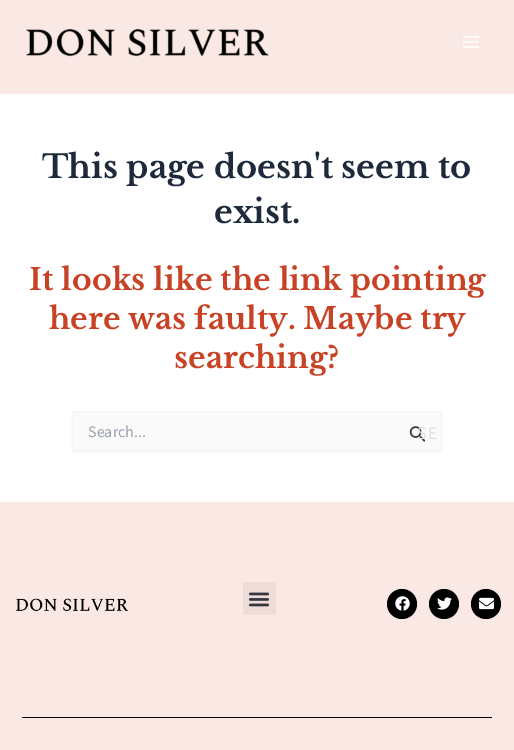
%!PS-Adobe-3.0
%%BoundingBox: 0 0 514 750
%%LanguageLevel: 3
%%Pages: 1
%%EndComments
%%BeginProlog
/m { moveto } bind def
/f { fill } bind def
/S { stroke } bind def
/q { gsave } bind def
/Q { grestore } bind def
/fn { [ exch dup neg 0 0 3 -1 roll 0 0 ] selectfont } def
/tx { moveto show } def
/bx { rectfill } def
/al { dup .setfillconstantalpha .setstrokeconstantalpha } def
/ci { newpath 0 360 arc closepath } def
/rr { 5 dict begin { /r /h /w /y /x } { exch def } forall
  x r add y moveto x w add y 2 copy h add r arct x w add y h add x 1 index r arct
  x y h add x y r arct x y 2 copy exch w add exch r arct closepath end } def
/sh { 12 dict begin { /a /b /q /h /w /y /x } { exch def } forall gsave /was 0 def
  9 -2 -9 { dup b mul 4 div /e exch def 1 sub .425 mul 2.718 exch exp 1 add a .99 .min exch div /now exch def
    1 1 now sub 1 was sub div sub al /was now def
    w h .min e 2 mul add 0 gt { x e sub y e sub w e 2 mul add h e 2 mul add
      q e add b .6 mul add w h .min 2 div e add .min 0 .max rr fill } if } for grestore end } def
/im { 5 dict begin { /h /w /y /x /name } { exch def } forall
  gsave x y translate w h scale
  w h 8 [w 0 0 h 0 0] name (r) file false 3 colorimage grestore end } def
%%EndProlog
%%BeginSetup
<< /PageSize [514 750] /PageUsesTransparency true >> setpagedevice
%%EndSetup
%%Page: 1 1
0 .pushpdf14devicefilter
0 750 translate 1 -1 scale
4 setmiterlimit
1 setgray
0 0 514 750 bx
0.98 0.91 0.894 setrgbcolor
0 0 514 94 bx
(image0.raw) 26 28 243 29 im
(image1.raw) 463 36 16 12 im
/LibreBaskerville-Bold 32 fn
0.118 0.161 0.231 setrgbcolor
(This page doesn't seem to) 42 178 tx
(exist.) 214 223 tx
/LibreBaskerville-Bold 30 fn
0.784 0.259 0.145 setrgbcolor
(It looks like the link pointing) 29 290 tx
(here was faulty. Maybe try) 49 329 tx
(searching?) 174 368 tx
0 setgray
72 412 370 40 2 1 0.05 sh
0.98 setgray
72.5 411.5 369 39 1.5 rr q f Q
0.949 0.961 0.969 setrgbcolor
S
/SourceSansPro-Regular 16 fn
0.612 0.639 0.686 setrgbcolor
(Search...) 88 437 tx
(image2.raw) 409 426 16 16 im
/SourceSansPro-Regular 18 fn
0.875 0.878 0.878 setrgbcolor
417 439 m 1 0 (SE) ashow
0.98 0.91 0.894 setrgbcolor
0 502 514 248 bx
(image3.raw) 16 598 112 14 im
0.933 0.863 0.851 setrgbcolor
243 582 33 33 3 rr f
(image4.raw) 248 592 22 15 im
0 setgray
402 604 15 ci f
(image5.raw) 395 596 15 15 im
444 604 15 ci f
(image6.raw) 437 597 15 13 im
486 604 15 ci f
(image7.raw) 479 597 15 13 im
22 717 470 1 bx
.poppdf14devicefilter showpage
%%EOF
